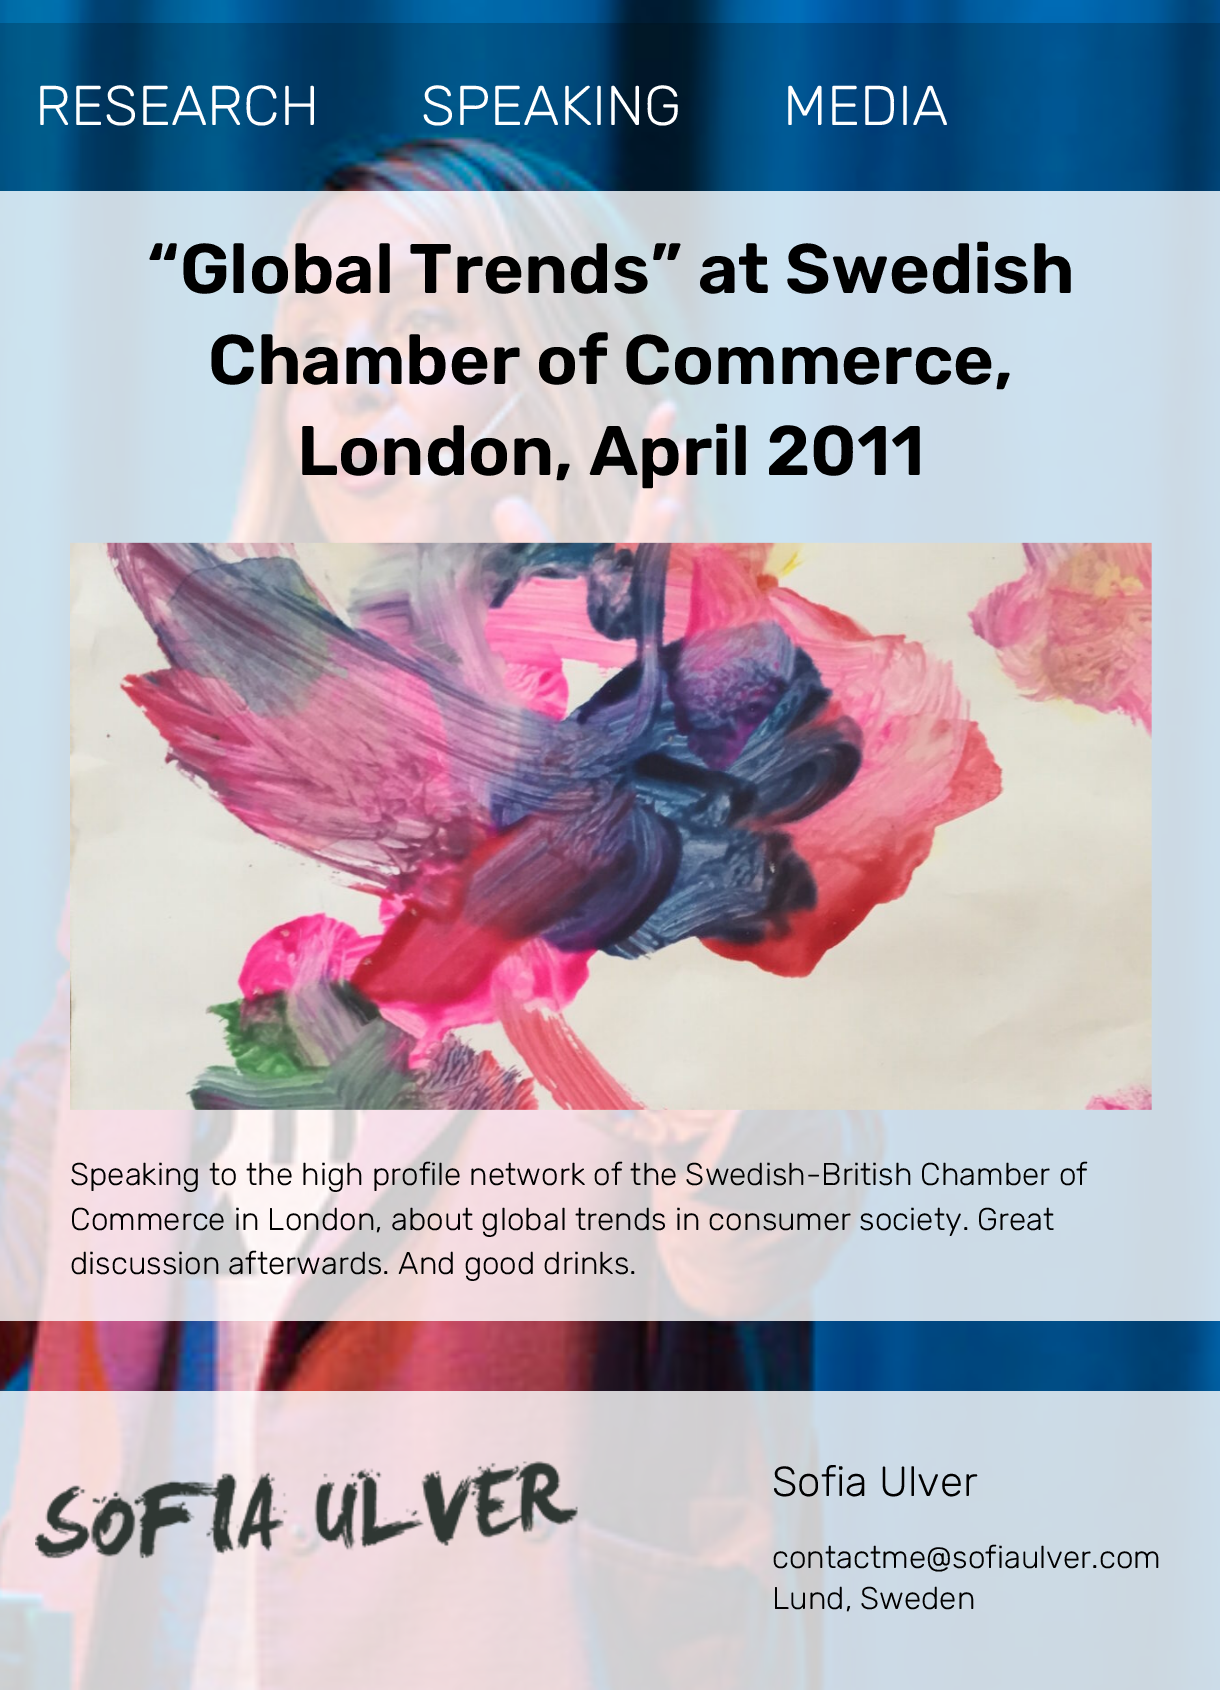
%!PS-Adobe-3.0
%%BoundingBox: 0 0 1220 1690
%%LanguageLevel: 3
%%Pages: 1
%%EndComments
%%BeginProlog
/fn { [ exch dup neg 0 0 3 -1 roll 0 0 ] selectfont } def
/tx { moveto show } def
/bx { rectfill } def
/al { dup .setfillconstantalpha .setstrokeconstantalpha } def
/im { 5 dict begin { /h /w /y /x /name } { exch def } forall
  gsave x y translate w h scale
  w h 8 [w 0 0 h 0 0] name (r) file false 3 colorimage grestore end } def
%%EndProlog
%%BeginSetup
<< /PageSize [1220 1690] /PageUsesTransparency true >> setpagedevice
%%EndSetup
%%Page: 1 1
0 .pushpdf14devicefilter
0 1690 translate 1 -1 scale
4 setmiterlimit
1 setgray
0 0 1220 1690 bx
(image0.raw) 0 0 1220 1690 im
0.2 al
0 setgray
0 23 1220 168 bx
/Rubik-Light 56 fn
1 al
1 setgray
(RESEARCH) 35 125 tx
(SPEAKING) 421 125 tx
(MEDIA) 783 125 tx
0.8 al
0 191 1220 1130 bx
/Rubik-SemiBold 70 fn
1 al
0 setgray
(“Global Trends” at Swedish) 147 293 tx
(Chamber of Commerce,) 208 384 tx
(London, April 2011) 297 475 tx
(image1.raw) 70 542 1082 568 im
/Rubik-Light 31.5 fn
(Speaking to the high profile network of the Swedish-British Chamber of) 70 1185 tx
(Commerce in London, about global trends in consumer society. Great) 70 1230 tx
(discussion afterwards. And good drinks.) 70 1274 tx
0.8 al
1 setgray
0 1391 1220 299 bx
1 al
(image2.raw) 35 1461 543 98 im
/Rubik-Light 42 fn
0 setgray
(Sofia Ulver) 772 1496 tx
/Rubik-Light 31.5 fn
(contactme@sofiaulver.com) 772 1568 tx
(Lund, Sweden) 772 1609 tx
.poppdf14devicefilter showpage
%%EOF
